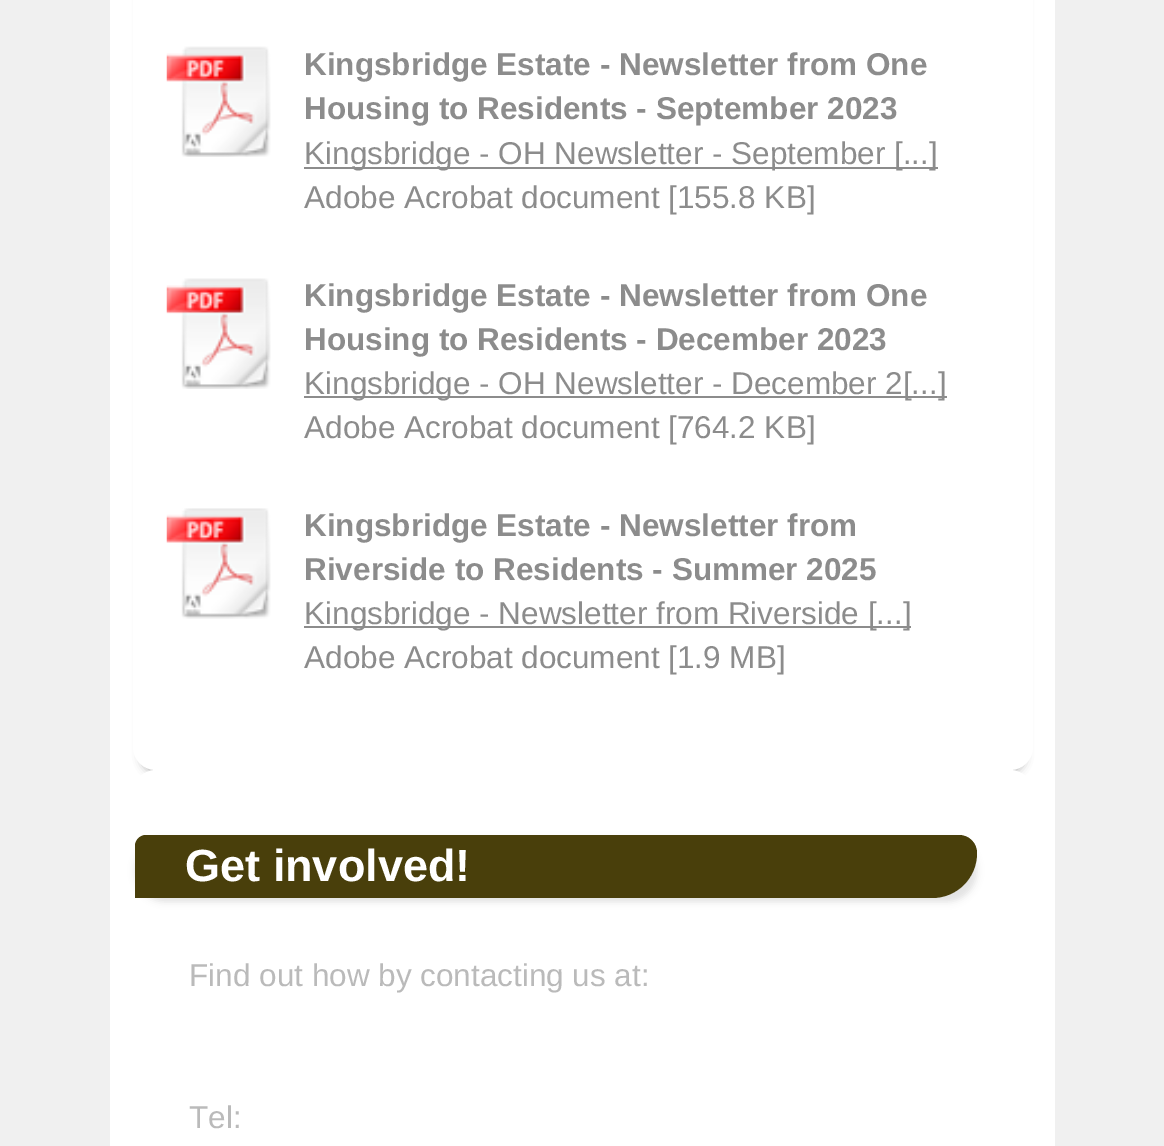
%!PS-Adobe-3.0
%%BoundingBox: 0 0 1164 1146
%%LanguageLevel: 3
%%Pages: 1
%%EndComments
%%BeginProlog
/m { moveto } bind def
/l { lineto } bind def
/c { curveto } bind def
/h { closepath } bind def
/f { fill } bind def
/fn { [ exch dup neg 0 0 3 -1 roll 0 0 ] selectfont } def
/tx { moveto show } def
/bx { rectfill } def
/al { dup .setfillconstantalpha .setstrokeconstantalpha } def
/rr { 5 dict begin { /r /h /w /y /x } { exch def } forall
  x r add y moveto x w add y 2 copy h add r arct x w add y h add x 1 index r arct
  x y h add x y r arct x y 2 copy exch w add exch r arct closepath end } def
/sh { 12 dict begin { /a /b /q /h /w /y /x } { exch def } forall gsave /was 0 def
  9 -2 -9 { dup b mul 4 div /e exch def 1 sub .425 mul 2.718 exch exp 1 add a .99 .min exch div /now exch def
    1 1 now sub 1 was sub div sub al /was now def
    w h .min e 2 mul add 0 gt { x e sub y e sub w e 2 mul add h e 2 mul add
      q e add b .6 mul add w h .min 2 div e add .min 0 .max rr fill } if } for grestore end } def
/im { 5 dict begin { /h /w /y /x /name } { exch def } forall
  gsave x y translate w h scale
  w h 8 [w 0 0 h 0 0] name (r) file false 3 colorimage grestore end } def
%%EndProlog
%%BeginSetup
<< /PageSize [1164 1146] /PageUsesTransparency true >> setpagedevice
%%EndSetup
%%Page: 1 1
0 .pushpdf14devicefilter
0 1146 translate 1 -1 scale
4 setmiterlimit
0.941 setgray
0 0 1164 1146 bx
1 setgray
110 0 945 1146 bx
0.278 setgray
142 -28 882 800 14 4.5 0.5 sh
1 setgray
133 -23 900 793 23 rr f
(image0.raw) 166 46 105 111 im
/LiberationSans-Bold 31.5 fn
0.549 setgray
(Kingsbridge Estate - Newsletter from One) 304 75 tx
(Housing to Residents - September 2023) 304 119 tx
304 167 634 2 bx
/LiberationSans-Regular 31.5 fn
(Kingsbridge - OH Newsletter - September [...]) 304 164 tx
(Adobe Acrobat document [155.8 KB]) 304 208 tx
(image1.raw) 166 278 105 111 im
/LiberationSans-Bold 31.5 fn
(Kingsbridge Estate - Newsletter from One) 304 306 tx
(Housing to Residents - December 2023) 304 350 tx
304 396 643 2 bx
/LiberationSans-Regular 31.5 fn
(Kingsbridge - OH Newsletter - December 2[...]) 304 394 tx
(Adobe Acrobat document [764.2 KB]) 304 438 tx
(image2.raw) 166 508 105 111 im
/LiberationSans-Bold 31.5 fn
(Kingsbridge Estate - Newsletter from) 304 536 tx
(Riverside to Residents - Summer 2025) 304 580 tx
304 626 607 2 bx
/LiberationSans-Regular 31.5 fn
(Kingsbridge - Newsletter from Riverside [...]) 304 624 tx
(Adobe Acrobat document [1.9 MB]) 304 668 tx
1 setgray
133 770 900 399 23 rr f
0.729 setgray
135 839 842 63 45 3.5 0.4 sh
0.286 0.247 0.043 setrgbcolor
146 835 m 959 835 l 969 835 977 843 977 853 c 977 878 957 898 932 898 c 135 898 l 135 846 l 135 840 140 835 146 835 c h f
/LiberationSans-Bold 45 fn
1 setgray
(Get involved!) 185 881 tx
/LiberationSans-Regular 31.5 fn
0.729 setgray
(Find out how by contacting us at:) 189 986 tx
(Tel:) 189 1128 tx
.poppdf14devicefilter showpage
%%EOF
